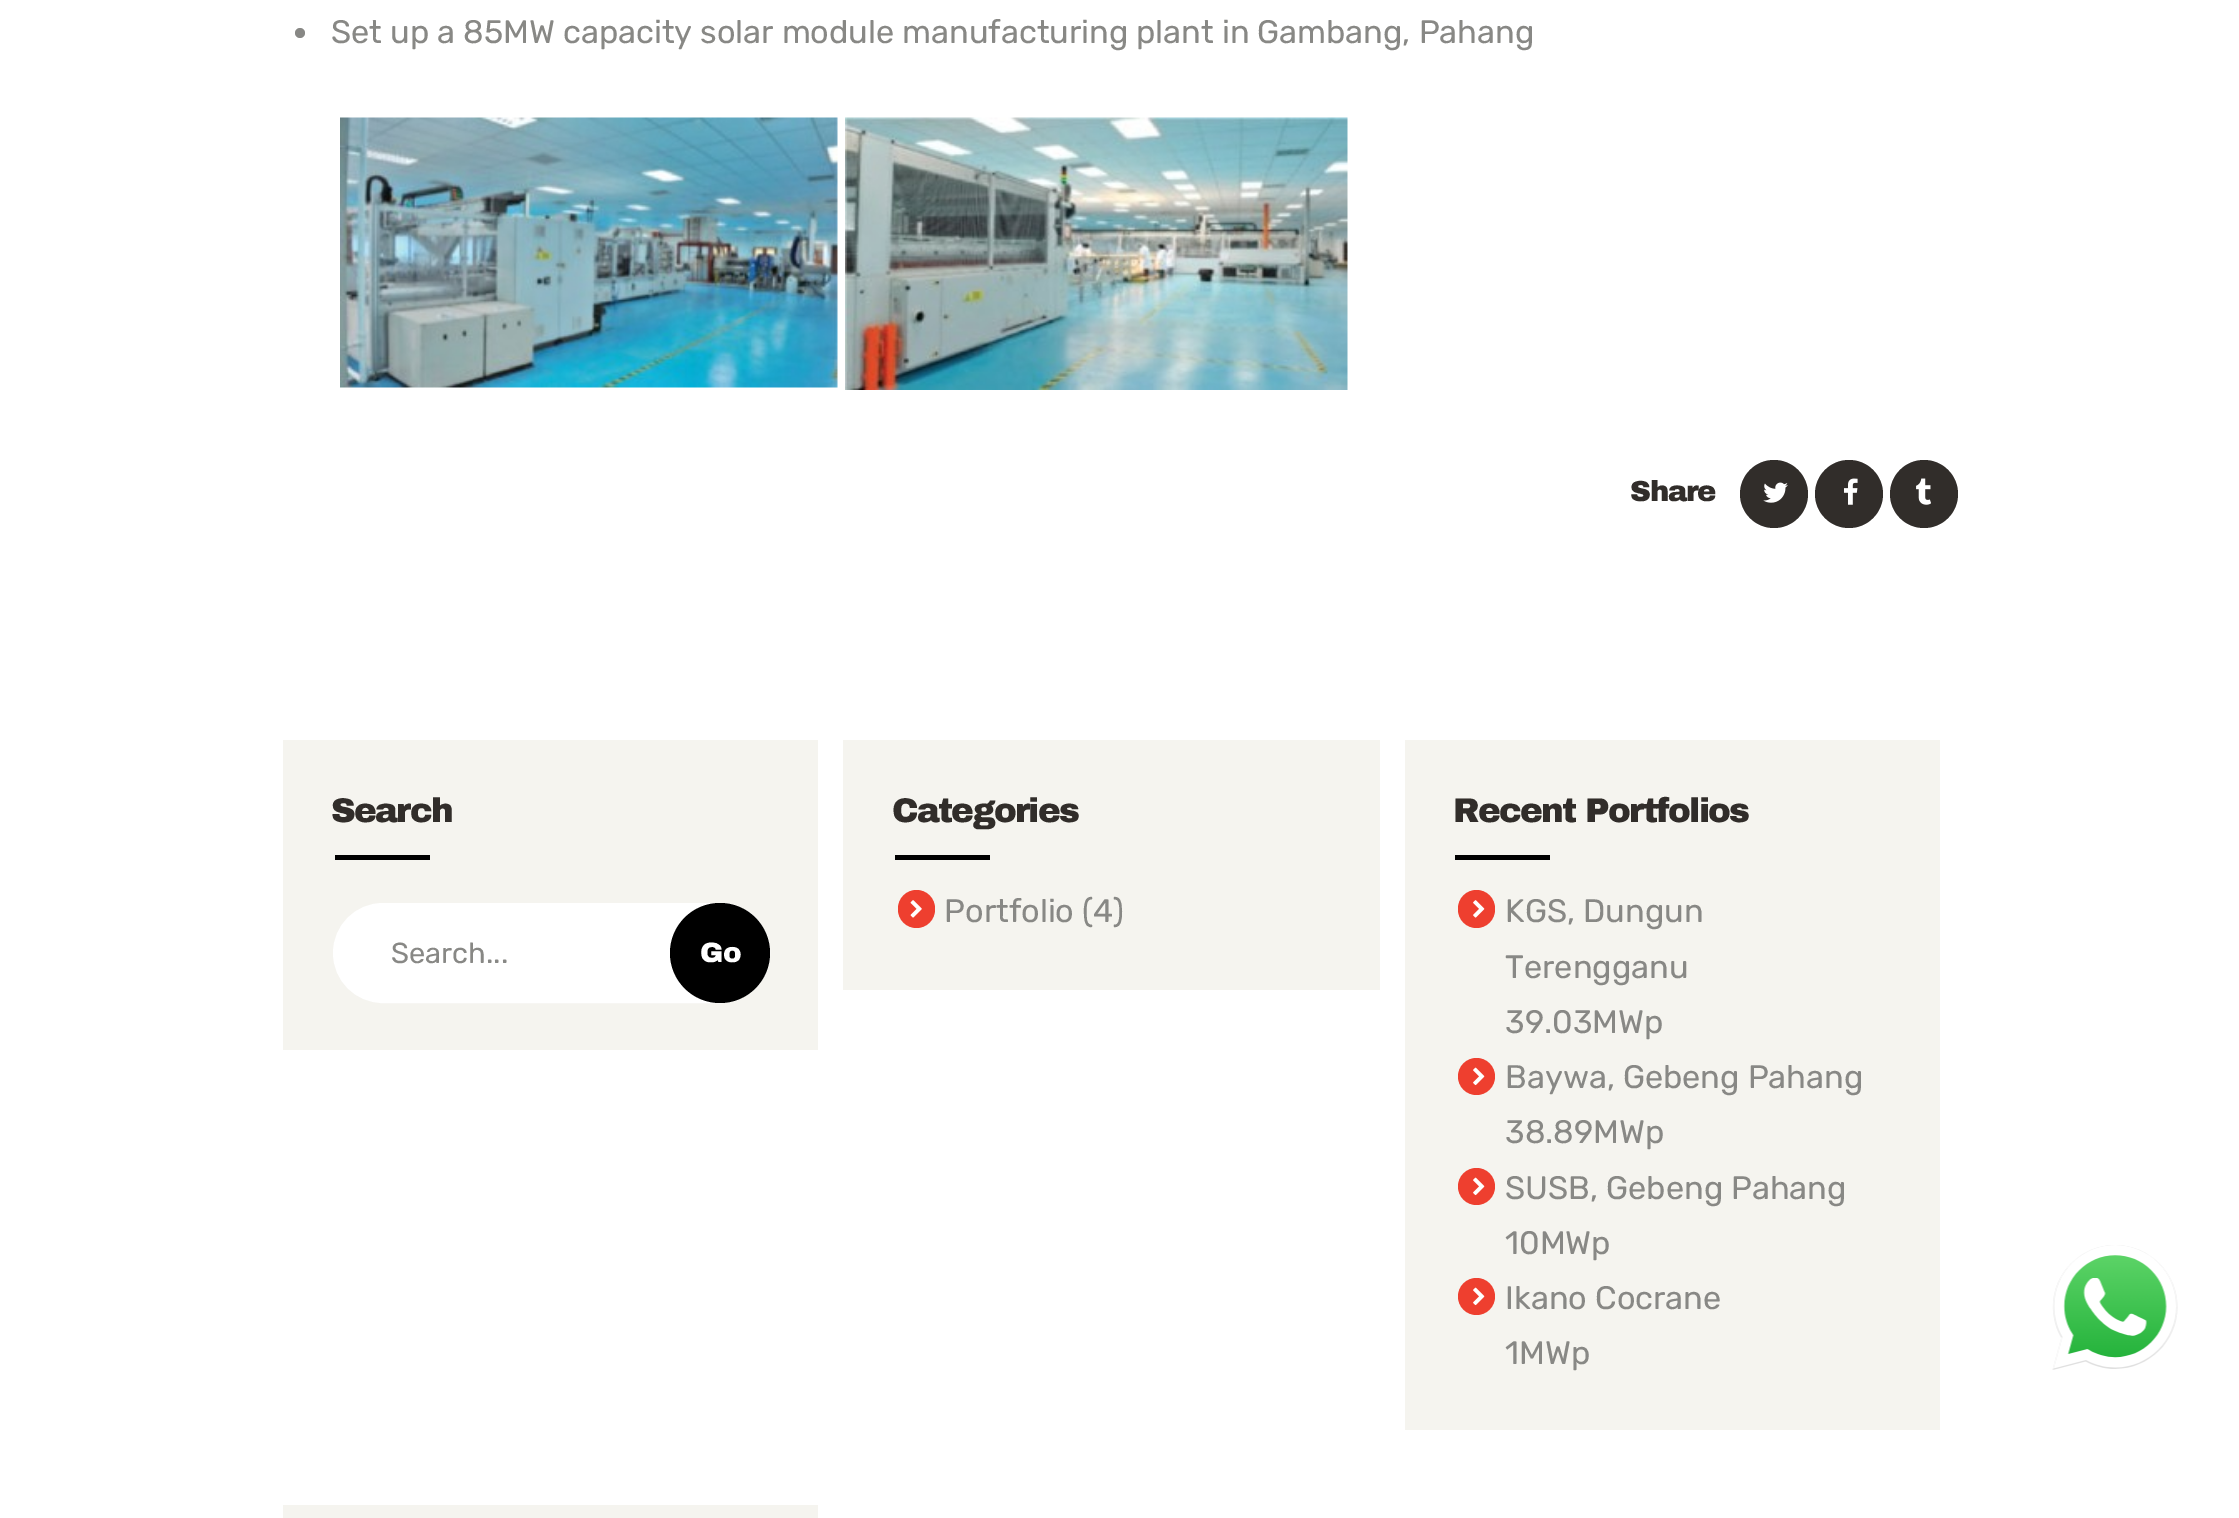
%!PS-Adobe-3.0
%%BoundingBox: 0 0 2239 1518
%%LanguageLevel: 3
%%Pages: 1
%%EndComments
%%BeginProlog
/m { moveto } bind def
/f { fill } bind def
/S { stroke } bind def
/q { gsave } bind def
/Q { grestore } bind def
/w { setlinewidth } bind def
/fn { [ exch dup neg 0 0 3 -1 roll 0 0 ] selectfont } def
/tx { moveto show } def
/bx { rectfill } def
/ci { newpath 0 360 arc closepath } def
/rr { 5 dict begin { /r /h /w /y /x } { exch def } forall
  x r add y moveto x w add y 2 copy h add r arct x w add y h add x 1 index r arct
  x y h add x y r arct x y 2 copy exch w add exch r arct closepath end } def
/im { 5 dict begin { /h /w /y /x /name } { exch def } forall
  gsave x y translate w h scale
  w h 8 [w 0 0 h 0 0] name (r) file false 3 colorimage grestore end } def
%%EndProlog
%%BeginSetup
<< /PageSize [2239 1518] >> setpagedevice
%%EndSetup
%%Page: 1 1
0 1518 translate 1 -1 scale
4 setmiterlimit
1 setgray
0 0 2239 1518 bx
0.533 0.533 0.522 setrgbcolor
300 33 5 ci f
/Rubik-Regular 32.5 fn
(Set up a 85MW capacity solar module manufacturing plant in Gambang, Pahang) 331 43 tx
(image0.raw) 340 117 498 271 im
(image1.raw) 845 117 503 273 im
/ArchivoBlack-Black 29 fn
0.192 0.176 0.165 setrgbcolor
1630 501 m -1.25 0 (Share) ashow
1774 494 34 ci f
(image2.raw) 1763 482 25 21 im
1849 494 34 ci f
(image3.raw) 1844 478 14 27 im
1924 494 34 ci f
(image4.raw) 1916 478 15 27 im
0.961 0.957 0.937 setrgbcolor
283 740 535 310 bx
/ArchivoBlack-Black 34.25 fn
0.192 0.176 0.165 setrgbcolor
331 822 m -1.75 0 (Search) ashow
0 setgray
335 855 95 5 bx
1 setgray
335.5 905.5 432 95 47.5 rr q f Q
5 w
S
/Rubik-Regular 29 fn
0.533 0.533 0.522 setrgbcolor
(Search...) 391 963 tx
0 setgray
720 953 50 ci f
/ArchivoBlack-Black 28 fn
1 setgray
(Go) 700 962 tx
0.961 0.957 0.937 setrgbcolor
843 740 537 250 bx
/ArchivoBlack-Black 34.25 fn
0.192 0.176 0.165 setrgbcolor
892 822 m -1.75 0 (Categories) ashow
0 setgray
895 855 95 5 bx
0.933 0.247 0.184 setrgbcolor
898 890 37 38 18.5 rr f
(image5.raw) 910 900 12 18 im
/Rubik-Regular 32.5 fn
0.533 0.533 0.522 setrgbcolor
(Portfolio \(4\)) 944 922 tx
0.961 0.957 0.937 setrgbcolor
1405 740 535 690 bx
/ArchivoBlack-Black 34.25 fn
0.192 0.176 0.165 setrgbcolor
1453 822 m -1.75 0 (Recent Portfolios) ashow
0 setgray
1455 855 95 5 bx
0.933 0.247 0.184 setrgbcolor
1458 890 37 38 18.5 rr f
(image6.raw) 1473 900 12 18 im
/Rubik-Regular 32.5 fn
0.533 0.533 0.522 setrgbcolor
(KGS, Dungun) 1505 922 tx
(Terengganu) 1505 978 tx
(39.03MWp) 1505 1033 tx
0.933 0.247 0.184 setrgbcolor
1476.5 1076.5 18.5 ci f
(image7.raw) 1473 1067 12 19 im
0.533 0.533 0.522 setrgbcolor
(Baywa, Gebeng Pahang) 1505 1088 tx
(38.89MWp) 1505 1143 tx
0.933 0.247 0.184 setrgbcolor
1476.5 1186.5 18.5 ci f
(image7.raw) 1473 1177 12 19 im
0.533 0.533 0.522 setrgbcolor
(SUSB, Gebeng Pahang) 1505 1199 tx
(10MWp) 1505 1254 tx
0.933 0.247 0.184 setrgbcolor
1476.5 1296.5 18.5 ci f
(image7.raw) 1473 1287 12 19 im
0.533 0.533 0.522 setrgbcolor
(Ikano Cocrane) 1505 1309 tx
(1MWp) 1505 1364 tx
0.961 0.957 0.937 setrgbcolor
283 1505 535 13 bx
(image8.raw) 2052 1245 126 125 im
showpage
%%EOF
